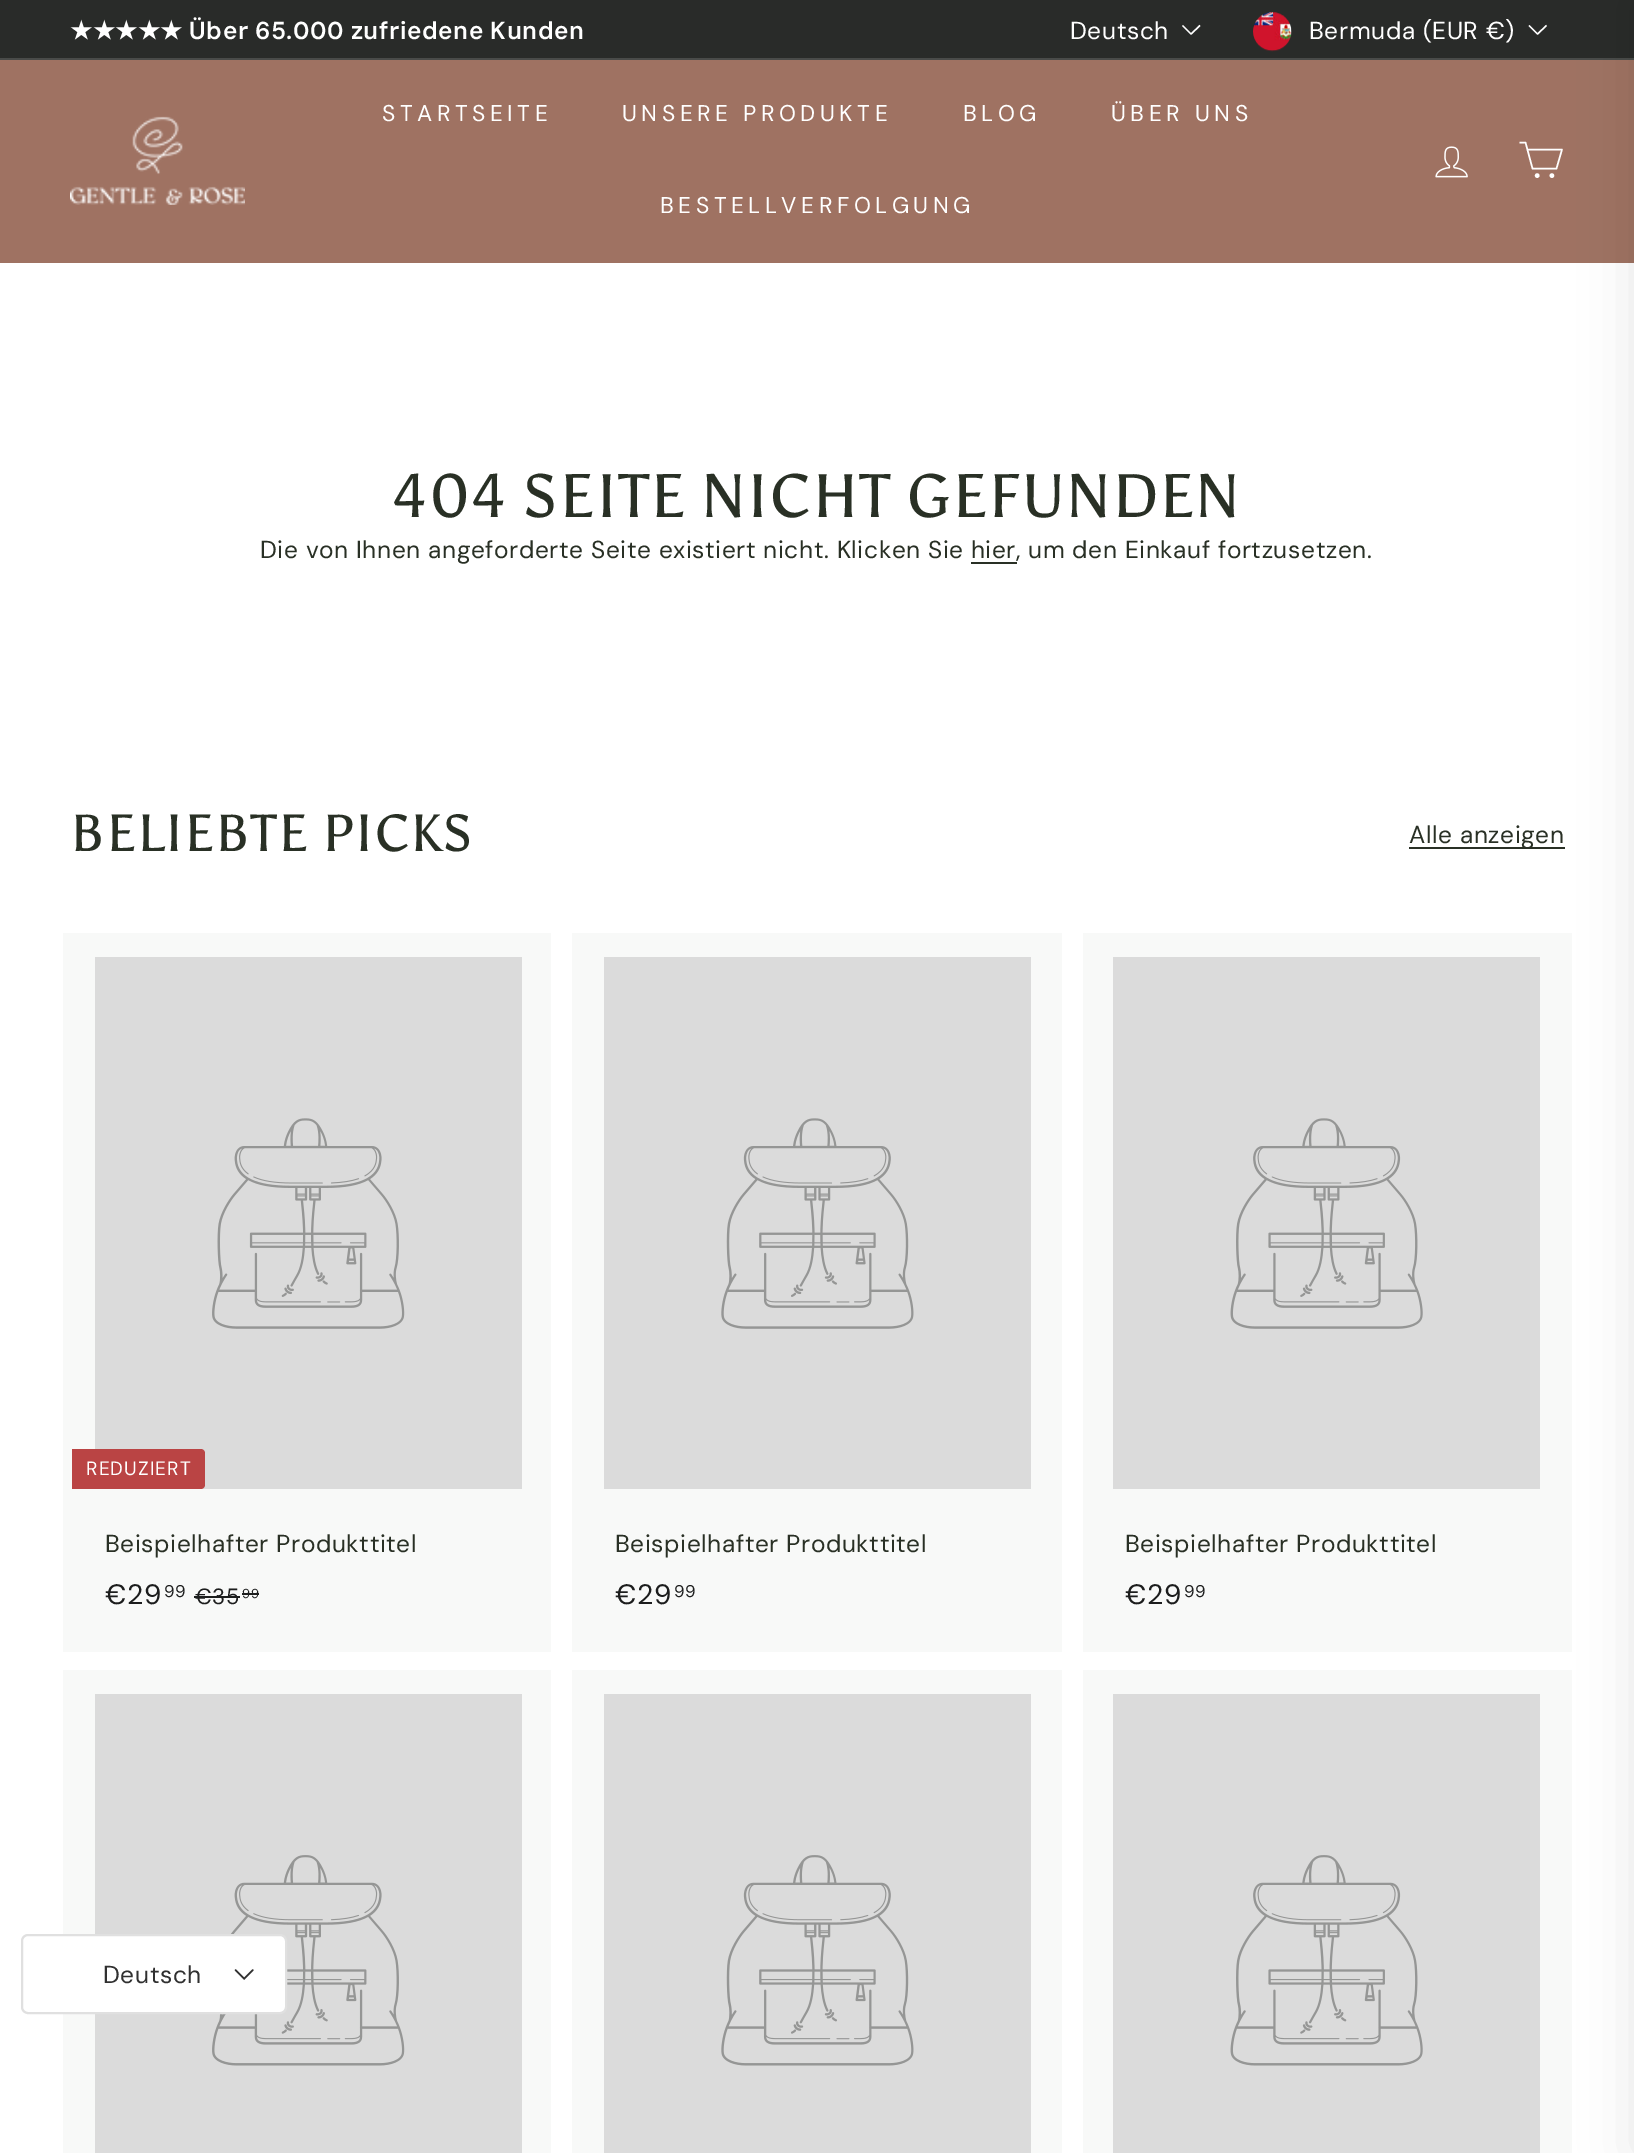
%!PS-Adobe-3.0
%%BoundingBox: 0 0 1634 2153
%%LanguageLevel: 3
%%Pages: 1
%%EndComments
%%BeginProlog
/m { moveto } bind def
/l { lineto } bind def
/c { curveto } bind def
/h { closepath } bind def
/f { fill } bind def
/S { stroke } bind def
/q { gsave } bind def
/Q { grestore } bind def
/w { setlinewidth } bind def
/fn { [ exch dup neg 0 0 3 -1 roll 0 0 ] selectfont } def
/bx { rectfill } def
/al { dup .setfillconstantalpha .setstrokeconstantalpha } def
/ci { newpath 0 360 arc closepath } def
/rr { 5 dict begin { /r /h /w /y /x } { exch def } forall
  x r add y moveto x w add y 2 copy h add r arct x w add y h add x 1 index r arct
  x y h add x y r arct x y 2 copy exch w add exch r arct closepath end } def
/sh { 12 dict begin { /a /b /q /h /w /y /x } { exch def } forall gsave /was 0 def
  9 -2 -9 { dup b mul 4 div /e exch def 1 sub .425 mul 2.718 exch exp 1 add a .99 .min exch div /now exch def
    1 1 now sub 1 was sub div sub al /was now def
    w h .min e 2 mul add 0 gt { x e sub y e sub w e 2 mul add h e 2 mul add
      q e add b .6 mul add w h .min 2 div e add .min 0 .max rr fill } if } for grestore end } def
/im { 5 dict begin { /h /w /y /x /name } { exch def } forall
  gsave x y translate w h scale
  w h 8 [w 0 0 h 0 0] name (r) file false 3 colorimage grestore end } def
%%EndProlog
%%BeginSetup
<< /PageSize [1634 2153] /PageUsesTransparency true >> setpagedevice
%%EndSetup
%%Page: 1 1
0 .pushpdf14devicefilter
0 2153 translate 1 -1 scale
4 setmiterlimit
1 setgray
0 0 1634 2153 bx
0.161 0.169 0.161 setrgbcolor
0 0 1634 58 bx
/DejaVuSans-Bold 24.5 fn
1 setgray
70 39 m 0.6 0 (★★★★★) ashow
/DMSans-SemiBold 24.5 fn
189 39 m -0.5 0 32 0.6 0 (Über 65.000 zufriedene Kunden) awidthshow
/DMSans-Regular 24.5 fn
1070 39 m 0.6 0 (Deutsch) ashow
1.4 w
1 setlinejoin
1182.5 25.5 m 1191 34 l 1200 25.5 l S
(image0.raw) 1253 12 39 40 im
1309 39 m 0.6 0 (Bermuda \(EUR €\)) ashow
1529 25.5 m 1537.5 34 l 1546.5 25.5 l S
0.286 0.294 0.286 setrgbcolor
0 58 1634 2 bx
0.624 0.447 0.384 setrgbcolor
0 60 1634 203 bx
(image1.raw) 70 116 175 89 im
/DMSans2-Regular 22.75 fn
1 setgray
382 121 m 4.5 0 (STARTSEITE) ashow
622 121 m 4.5 0 (UNSERE PRODUKTE) ashow
963 121 m 4.5 0 (BLOG) ashow
1111 121 m 4.5 0 (ÜBER UNS) ashow
660 213 m 4.5 0 (BESTELLVERFOLGUNG) ashow
(image2.raw) 1435 146 33 32 im
1.5 w
1527.5 149.5 m 1562 149.5 l 1556.5 168.5 l 1532.5 168.5 l 1525.5 142.5 l 1519.5 142.5 l S
1537.2 175.6 1.5 ci q f Q
0 setlinejoin
S
1551.9 175.6 1.5 ci q f Q
S
/Asul-Regular 61.25 fn
0.161 0.188 0.145 setrgbcolor
393 517 m 1.5 0 (404 SEITE NICHT GEFUNDEN) ashow
/DMSans-Regular 24.5 fn
260 558 m 0.6 0 (Die von Ihnen angeforderte Seite existiert nicht. Klicken Sie hier, um den Einkauf fortzusetzen.) ashow
971 562 46 2 bx
/Asul-Regular 52 fn
70 851 m 1.25 0 (BELIEBTE PICKS) ashow
1409 847 156 2 bx
/DMSans-Regular 24.5 fn
1409 843 m 0.6 0 (Alle anzeigen) ashow
0.882 setgray
95 957 427 532 bx
(image3.raw) 212 1118 193 211 im
0.11 0.114 0.114 setrgbcolor
194 1596 46 2 bx
242 1593 17 2 bx
0.03 al
0.161 0.188 0.145 setrgbcolor
63 933 488 719 bx
1 al
0.729 0.267 0.267 setrgbcolor
72 1449 m 201 1449 l 203 1449 205 1451 205 1453 c 205 1485 l 205 1487 203 1489 201 1489 c 72 1489 l h f
/DMSans2-Regular 19.25 fn
1 setgray
86 1475 m 1 0 (REDUZIERT) ashow
/DMSans-Regular 24.5 fn
0.161 0.188 0.145 setrgbcolor
105 1552 m 0.6 0 (Beispielhafter Produkttitel) ashow
/DMSans2-Regular 28 fn
0.11 0.114 0.114 setrgbcolor
105 1604 m 0.6 0 (€29) ashow
/DMSans2-Regular 17 fn
164 1597 m 0.6 0 (99) ashow
/DMSans2-Regular 22 fn
195 1604 m 0.6 0 (€35) ashow
/DMSans2-Regular 13 fn
242 1598 m 0.6 0 (99) ashow
0.882 setgray
604 957 427 532 bx
(image4.raw) 721 1118 193 211 im
0.03 al
0.161 0.188 0.145 setrgbcolor
572 933 490 719 bx
/DMSans-Regular 24.5 fn
1 al
615 1552 m 0.6 0 (Beispielhafter Produkttitel) ashow
/DMSans2-Regular 28 fn
0.11 0.114 0.114 setrgbcolor
615 1604 m 0.6 0 (€29) ashow
/DMSans2-Regular 17 fn
674 1597 m 0.6 0 (99) ashow
0.882 setgray
1113 957 427 532 bx
(image5.raw) 1230 1118 193 211 im
0.03 al
0.161 0.188 0.145 setrgbcolor
1083 933 489 719 bx
/DMSans-Regular 24.5 fn
1 al
1125 1552 m 0.6 0 (Beispielhafter Produkttitel) ashow
/DMSans2-Regular 28 fn
0.11 0.114 0.114 setrgbcolor
1125 1604 m 0.6 0 (€29) ashow
/DMSans2-Regular 17 fn
1184 1597 m 0.6 0 (99) ashow
0.882 setgray
95 1694 427 459 bx
(image6.raw) 212 1855 193 211 im
0.03 al
0.161 0.188 0.145 setrgbcolor
63 1670 488 483 bx
1 al
0.882 setgray
604 1694 427 459 bx
(image7.raw) 721 1855 193 211 im
0.03 al
0.161 0.188 0.145 setrgbcolor
572 1670 490 483 bx
1 al
0.882 setgray
1113 1694 427 459 bx
(image8.raw) 1230 1855 193 211 im
0.03 al
0.161 0.188 0.145 setrgbcolor
1083 1670 489 483 bx
1 al
0 setgray
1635 0 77 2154 0 26 0.1 sh
1 setgray
22 1935 264 78 6 rr q f Q
0.878 setgray
2 w
S
/DMSans-Regular 24.5 fn
0.188 setgray
103 1983 m 0.6 0 (Deutsch) ashow
(image9.raw) 234 1969 20 11 im
.poppdf14devicefilter showpage
%%EOF
